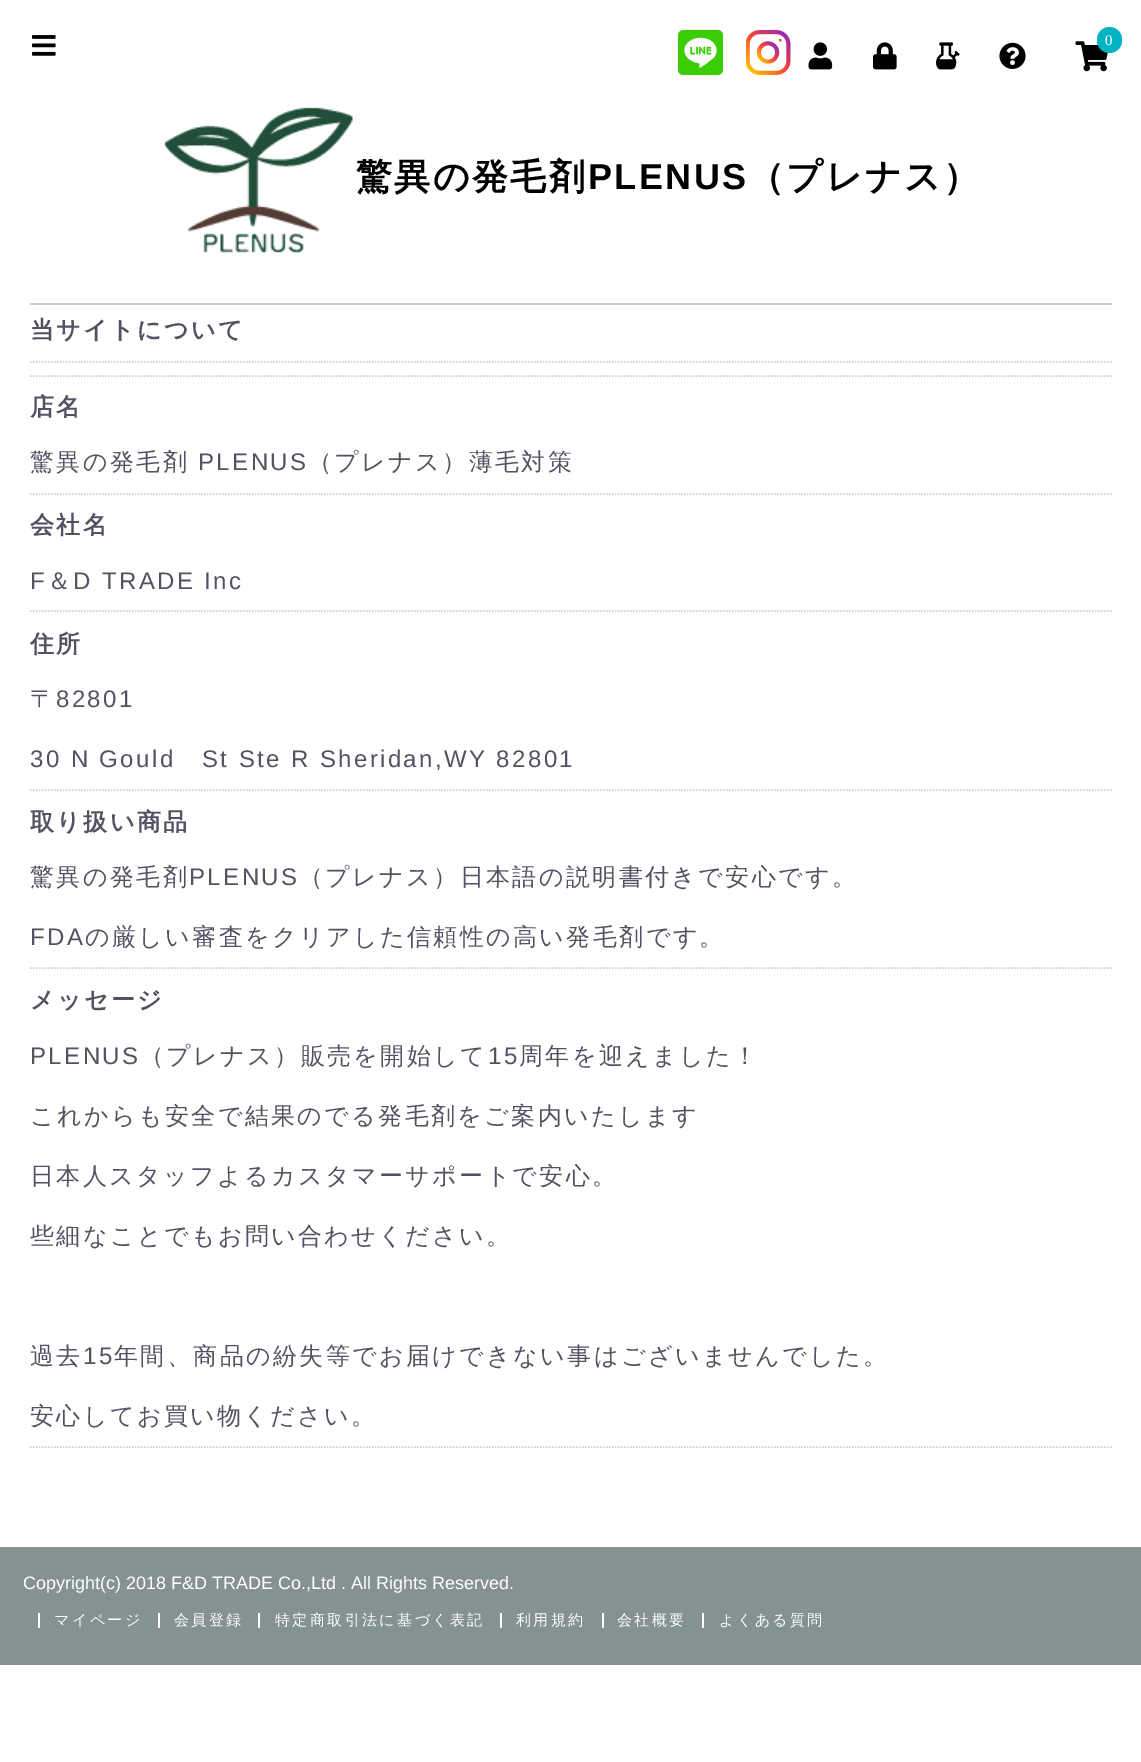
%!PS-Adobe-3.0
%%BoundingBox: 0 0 1141 1762
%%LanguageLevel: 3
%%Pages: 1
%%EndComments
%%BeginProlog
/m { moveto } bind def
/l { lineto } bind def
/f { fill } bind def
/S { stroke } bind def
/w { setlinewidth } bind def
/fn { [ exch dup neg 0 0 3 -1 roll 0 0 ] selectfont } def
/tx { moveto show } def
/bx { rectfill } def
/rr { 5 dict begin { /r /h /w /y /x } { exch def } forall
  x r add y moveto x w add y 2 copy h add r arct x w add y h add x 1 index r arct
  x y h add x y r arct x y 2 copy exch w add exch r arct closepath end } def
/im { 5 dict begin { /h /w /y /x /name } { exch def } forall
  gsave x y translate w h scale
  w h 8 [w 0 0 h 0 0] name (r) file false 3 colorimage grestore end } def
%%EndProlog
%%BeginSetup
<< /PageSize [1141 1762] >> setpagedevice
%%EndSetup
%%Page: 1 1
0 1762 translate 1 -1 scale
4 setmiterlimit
1 setgray
0 0 1141 1762 bx
(image0.raw) 32 35 24 21 im
(image1.raw) 678 30 45 45 im
(image2.raw) 746 30 45 45 im
(image3.raw) 808 42 25 28 im
(image4.raw) 873 42 24 28 im
(image5.raw) 936 42 24 28 im
(image6.raw) 999 42 27 27 im
(image7.raw) 1075 41 33 31 im
0.004 0.702 0.761 setrgbcolor
1097 27 25 26 12.5 rr f
/LiberationSerif-Regular 15 fn
1 setgray
1105 45 m 2.4 0 (0) ashow
(image8.raw) 164 107 189 146 im
/WenQuanYiZenHei-Bold 36 fn
0 setgray
356 189 m 2.4 0 (驚異の発毛剤) ashow
/LiberationSans-Bold 36 fn
588 189 m 2.4 0 (PLENUS) ashow
/WenQuanYiZenHei-Bold 36 fn
748 189 m 2.4 0 (（プレナス）) ashow
0.8 setgray
30 303 1082 2 bx
1.5 w
[1.5 1.5] 0 setdash
30 362 m 1111.5 362 l S
/WenQuanYiZenHei-Bold 24 fn
0.322 0.322 0.388 setrgbcolor
30 338 m 2.4 0 (当サイトについて) ashow
0.8 setgray
30 376 m 1111.5 376 l S
30 494 m 1111.5 494 l S
0.322 0.322 0.388 setrgbcolor
30 415 m 2.4 0 (店名) ashow
/WenQuanYiZenHei-Medium 24 fn
30 470 m 2.4 0 (驚異の発毛剤) ashow
/LiberationSans-Regular 24 fn
198 470 m 2.4 0 (PLENUS) ashow
/WenQuanYiZenHei-Medium 24 fn
308 470 m 2.4 0 (（プレナス）薄毛対策) ashow
0.8 setgray
30 611 m 1111.5 611 l S
/WenQuanYiZenHei-Bold 24 fn
0.322 0.322 0.388 setrgbcolor
30 533 m 2.4 0 (会社名) ashow
/LiberationSans-Regular 24 fn
30 589 m 2.4 0 (F) ashow
/WenQuanYiZenHei-Medium 24 fn
47 589 m 2.4 0 (＆) ashow
/LiberationSans-Regular 24 fn
73 589 m 2.4 0 (D TRADE Inc) ashow
0.8 setgray
30 790 m 1111.5 790 l S
/WenQuanYiZenHei-Bold 24 fn
0.322 0.322 0.388 setrgbcolor
30 652 m 2.4 0 (住所) ashow
/WenQuanYiZenHei-Medium 24 fn
30 707 m 2.4 0 (〒) ashow
/LiberationSans-Regular 24 fn
56 707 m 2.4 0 (82801) ashow
30 767 m 2.4 0 (30 N Gould) ashow
202 767 m 2.4 0 (St Ste R Sheridan,WY 82801) ashow
0.8 setgray
30 968 m 1111.5 968 l S
/WenQuanYiZenHei-Bold 24 fn
0.322 0.322 0.388 setrgbcolor
30 830 m 2.4 0 (取り扱い商品) ashow
/WenQuanYiZenHei-Medium 24 fn
30 885 m 2.4 0 (驚異の発毛剤) ashow
/LiberationSans-Regular 24 fn
189 885 m 2.4 0 (PLENUS) ashow
/WenQuanYiZenHei-Medium 24 fn
299 885 m 2.4 0 (（プレナス）日本語の説明書付きで安心です。) ashow
/LiberationSans-Regular 24 fn
30 945 m 2.4 0 (FDA) ashow
/WenQuanYiZenHei-Medium 24 fn
85 945 m 2.4 0 (の厳しい審査をクリアした信頼性の高い発毛剤です。) ashow
0.8 setgray
30 1447 m 1111.5 1447 l S
/WenQuanYiZenHei-Bold 24 fn
0.322 0.322 0.388 setrgbcolor
30 1008 m 2.4 0 (メッセージ) ashow
/LiberationSans-Regular 24 fn
30 1064 m 2.4 0 (PLENUS) ashow
/WenQuanYiZenHei-Medium 24 fn
140 1064 m 2.4 0 (（プレナス）販売を開始して) ashow
/LiberationSans-Regular 24 fn
488 1064 m 2.4 0 (15) ashow
/WenQuanYiZenHei-Medium 24 fn
519 1064 m 2.4 0 (周年を迎えました！) ashow
30 1124 m 2.4 0 (これからも安全で結果のでる発毛剤をご案内いたします) ashow
30 1184 m 2.4 0 (日本人スタッフよるカスタマーサポートで安心。) ashow
30 1244 m 2.4 0 (些細なことでもお問い合わせください。) ashow
30 1364 m 2.4 0 (過去) ashow
/LiberationSans-Regular 24 fn
83 1364 m 2.4 0 (15) ashow
/WenQuanYiZenHei-Medium 24 fn
114 1364 m 2.4 0 (年間、商品の紛失等でお届けできない事はございませんでした。) ashow
30 1424 m 2.4 0 (安心してお買い物ください。) ashow
0.522 0.573 0.573 setrgbcolor
0 1547 1141 118 bx
/LiberationSans-Regular 18 fn
1 setgray
(Copyright\(c\) 2018 F&D TRADE Co.,Ltd . All Rights Reserved.) 23 1589 tx
38 1613 2 15 bx
158 1613 2 15 bx
/WenQuanYiZenHei-Medium 15 fn
54 1625 m 2.4 0 (マイページ) ashow
258 1613 2 15 bx
174 1625 m 2.4 0 (会員登録) ashow
500 1613 2 15 bx
275 1625 m 2.4 0 (特定商取引法に基づく表記) ashow
602 1613 2 15 bx
516 1625 m 2.4 0 (利用規約) ashow
702 1613 2 15 bx
617 1625 m 2.4 0 (会社概要) ashow
719 1625 m 2.4 0 (よくある質問) ashow
showpage
%%EOF
